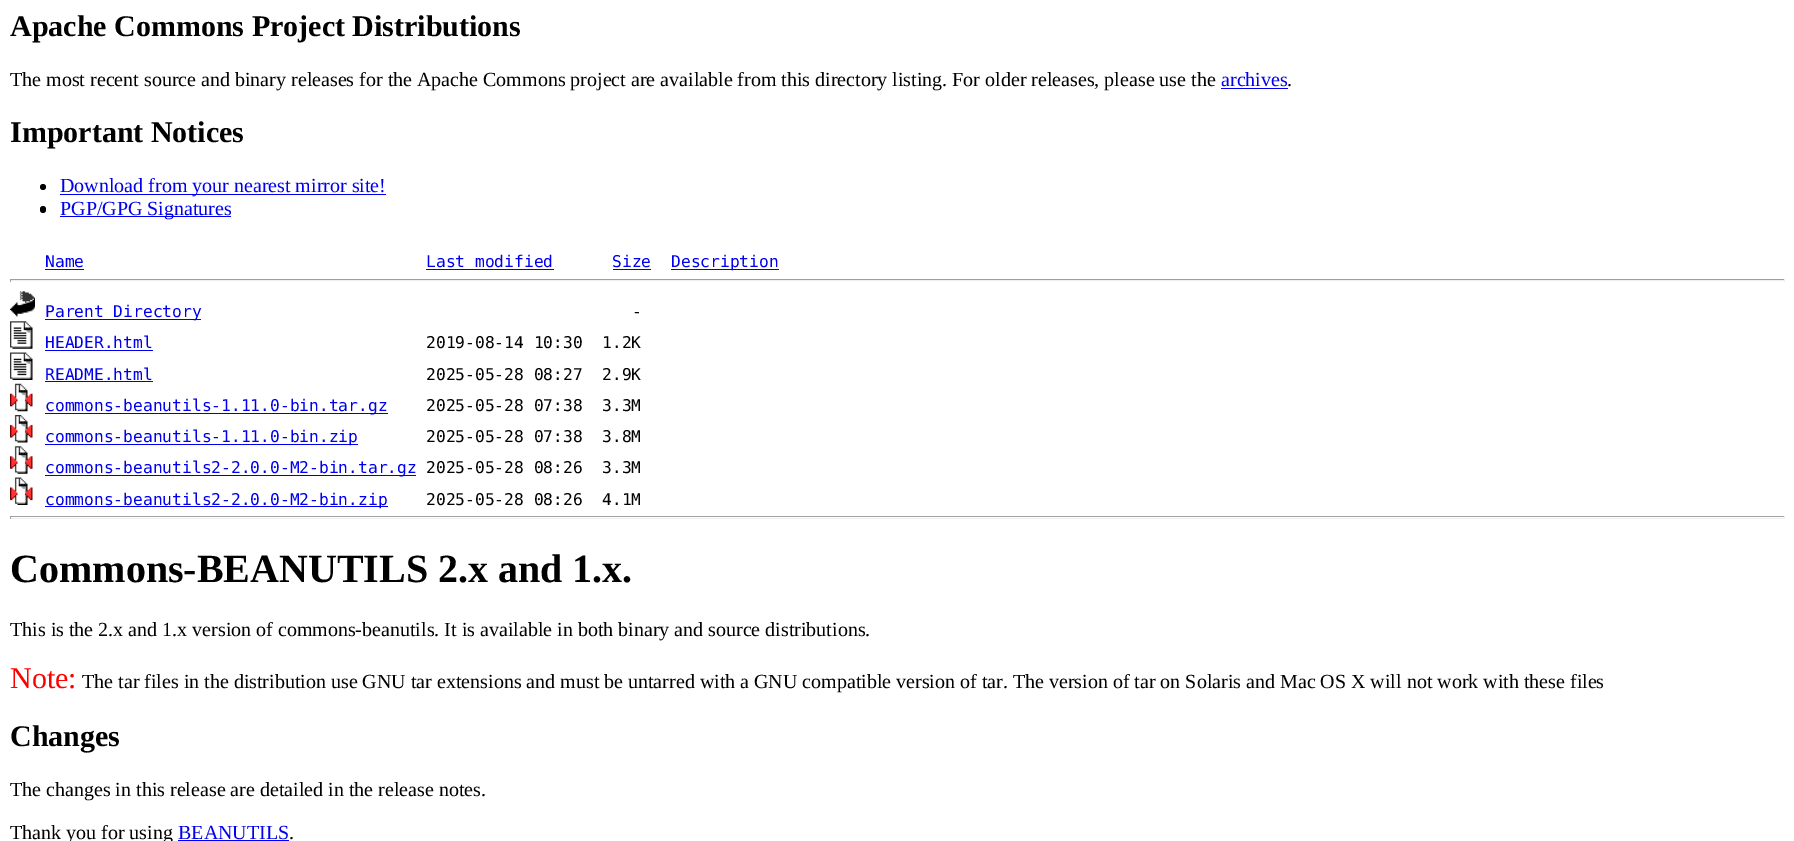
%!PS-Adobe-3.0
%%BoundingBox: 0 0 1794 841
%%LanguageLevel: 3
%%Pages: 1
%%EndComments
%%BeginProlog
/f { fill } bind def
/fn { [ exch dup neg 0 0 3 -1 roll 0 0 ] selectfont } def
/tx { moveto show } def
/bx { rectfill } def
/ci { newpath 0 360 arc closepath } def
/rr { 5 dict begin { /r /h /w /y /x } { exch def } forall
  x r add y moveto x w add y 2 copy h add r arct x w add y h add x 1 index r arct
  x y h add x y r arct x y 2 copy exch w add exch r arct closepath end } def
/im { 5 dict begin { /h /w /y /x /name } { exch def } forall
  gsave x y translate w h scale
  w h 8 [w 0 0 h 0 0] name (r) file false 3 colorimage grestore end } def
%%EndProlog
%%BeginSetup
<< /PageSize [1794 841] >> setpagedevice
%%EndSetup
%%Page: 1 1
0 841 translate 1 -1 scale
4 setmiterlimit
1 setgray
0 0 1794 841 bx
/LiberationSerif-Bold 30 fn
0 setgray
(Apache Commons Project Distributions) 10 36 tx
/LiberationSerif-Regular 20 fn
(The most recent source and binary releases for the Apache Commons project are available from this directory listing. For older releases, please use the) 10 86 tx
0 0 0.933 setrgbcolor
(archives) 1221 86 tx
1221 88 67 1 bx
0 setgray
(.) 1287 86 tx
/LiberationSerif-Bold 30 fn
(Important Notices) 10 142 tx
43 187 3 ci f
0 0 0.933 setrgbcolor
60 194 326 1 bx
/LiberationSerif-Regular 20 fn
(Download from your nearest mirror site!) 60 192 tx
0 setgray
40 206 6 7 3 rr f
0 0 0.933 setrgbcolor
60 216 171 1 bx
(PGP/GPG Signatures) 60 215 tx
/DejaVuSansMono-Regular 16.25 fn
(Name) 45 267 tx
45 269 39 1 bx
(Last modified) 426 267 tx
426 269 128 1 bx
(Size) 612 267 tx
613 269 38 1 bx
671 269 108 1 bx
(Description) 671 267 tx
0.624 setgray
10 279 1775 1 bx
0.933 setgray
1784 279 1 3 bx
10 280 1775 1 bx
0.624 setgray
10 279 1 3 bx
(image0.raw) 10 291 25 26 im
0 0 0.933 setrgbcolor
45 319 156 1 bx
(Parent Directory) 45 317 tx
0 setgray
(-) 632 317 tx
(image1.raw) 10 321 23 28 im
0 0 0.933 setrgbcolor
(HEADER.html) 45 348 tx
45 350 108 1 bx
0 setgray
(2019-08-14 10:30  1.2K) 426 348 tx
(image2.raw) 10 352 23 28 im
0 0 0.933 setrgbcolor
(README.html) 45 380 tx
45 381 108 1 bx
0 setgray
(2025-05-28 08:27  2.9K) 426 380 tx
(image3.raw) 10 383 23 29 im
0 0 0.933 setrgbcolor
45 413 343 1 bx
(commons-beanutils-1.11.0-bin.tar.gz) 45 411 tx
0 setgray
(2025-05-28 07:38  3.3M) 426 411 tx
(image4.raw) 10 415 23 28 im
0 0 0.933 setrgbcolor
45 444 313 1 bx
(commons-beanutils-1.11.0-bin.zip) 45 442 tx
0 setgray
(2025-05-28 07:38  3.8M) 426 442 tx
(image5.raw) 10 446 23 28 im
0 0 0.933 setrgbcolor
45 475 371 1 bx
(commons-beanutils2-2.0.0-M2-bin.tar.gz) 45 473 tx
0 setgray
(2025-05-28 08:26  3.3M) 426 473 tx
(image6.raw) 10 477 23 28 im
0 0 0.933 setrgbcolor
45 506 343 1 bx
(commons-beanutils2-2.0.0-M2-bin.zip) 45 505 tx
0 setgray
(2025-05-28 08:26  4.1M) 426 505 tx
0.624 setgray
10 516 1775 1 bx
0.933 setgray
1784 516 1 3 bx
10 518 1775 1 bx
0.624 setgray
10 516 1 3 bx
/LiberationSerif-Bold 40 fn
0 setgray
(Commons-BEANUTILS 2.x and 1.x.) 10 582 tx
/LiberationSerif-Regular 20 fn
(This is the 2.x and 1.x version of commons-beanutils. It is available in both binary and source distributions.) 10 636 tx
/LiberationSerif-Regular 30 fn
1 0 0 setrgbcolor
(Note:) 10 688 tx
/LiberationSerif-Regular 20 fn
0 setgray
(The tar files in the distribution use GNU tar extensions and must be untarred with a GNU compatible version of tar. The version of tar on Solaris and Mac OS X will not work with these files) 82 688 tx
/LiberationSerif-Bold 30 fn
(Changes) 10 746 tx
/LiberationSerif-Regular 20 fn
(The changes in this release are detailed in the release notes.) 10 796 tx
(Thank you for using) 10 839 tx
0 0 0.933 setrgbcolor
(BEANUTILS) 178 839 tx
178 840 111 1 bx
0 setgray
(.) 289 839 tx
showpage
%%EOF
